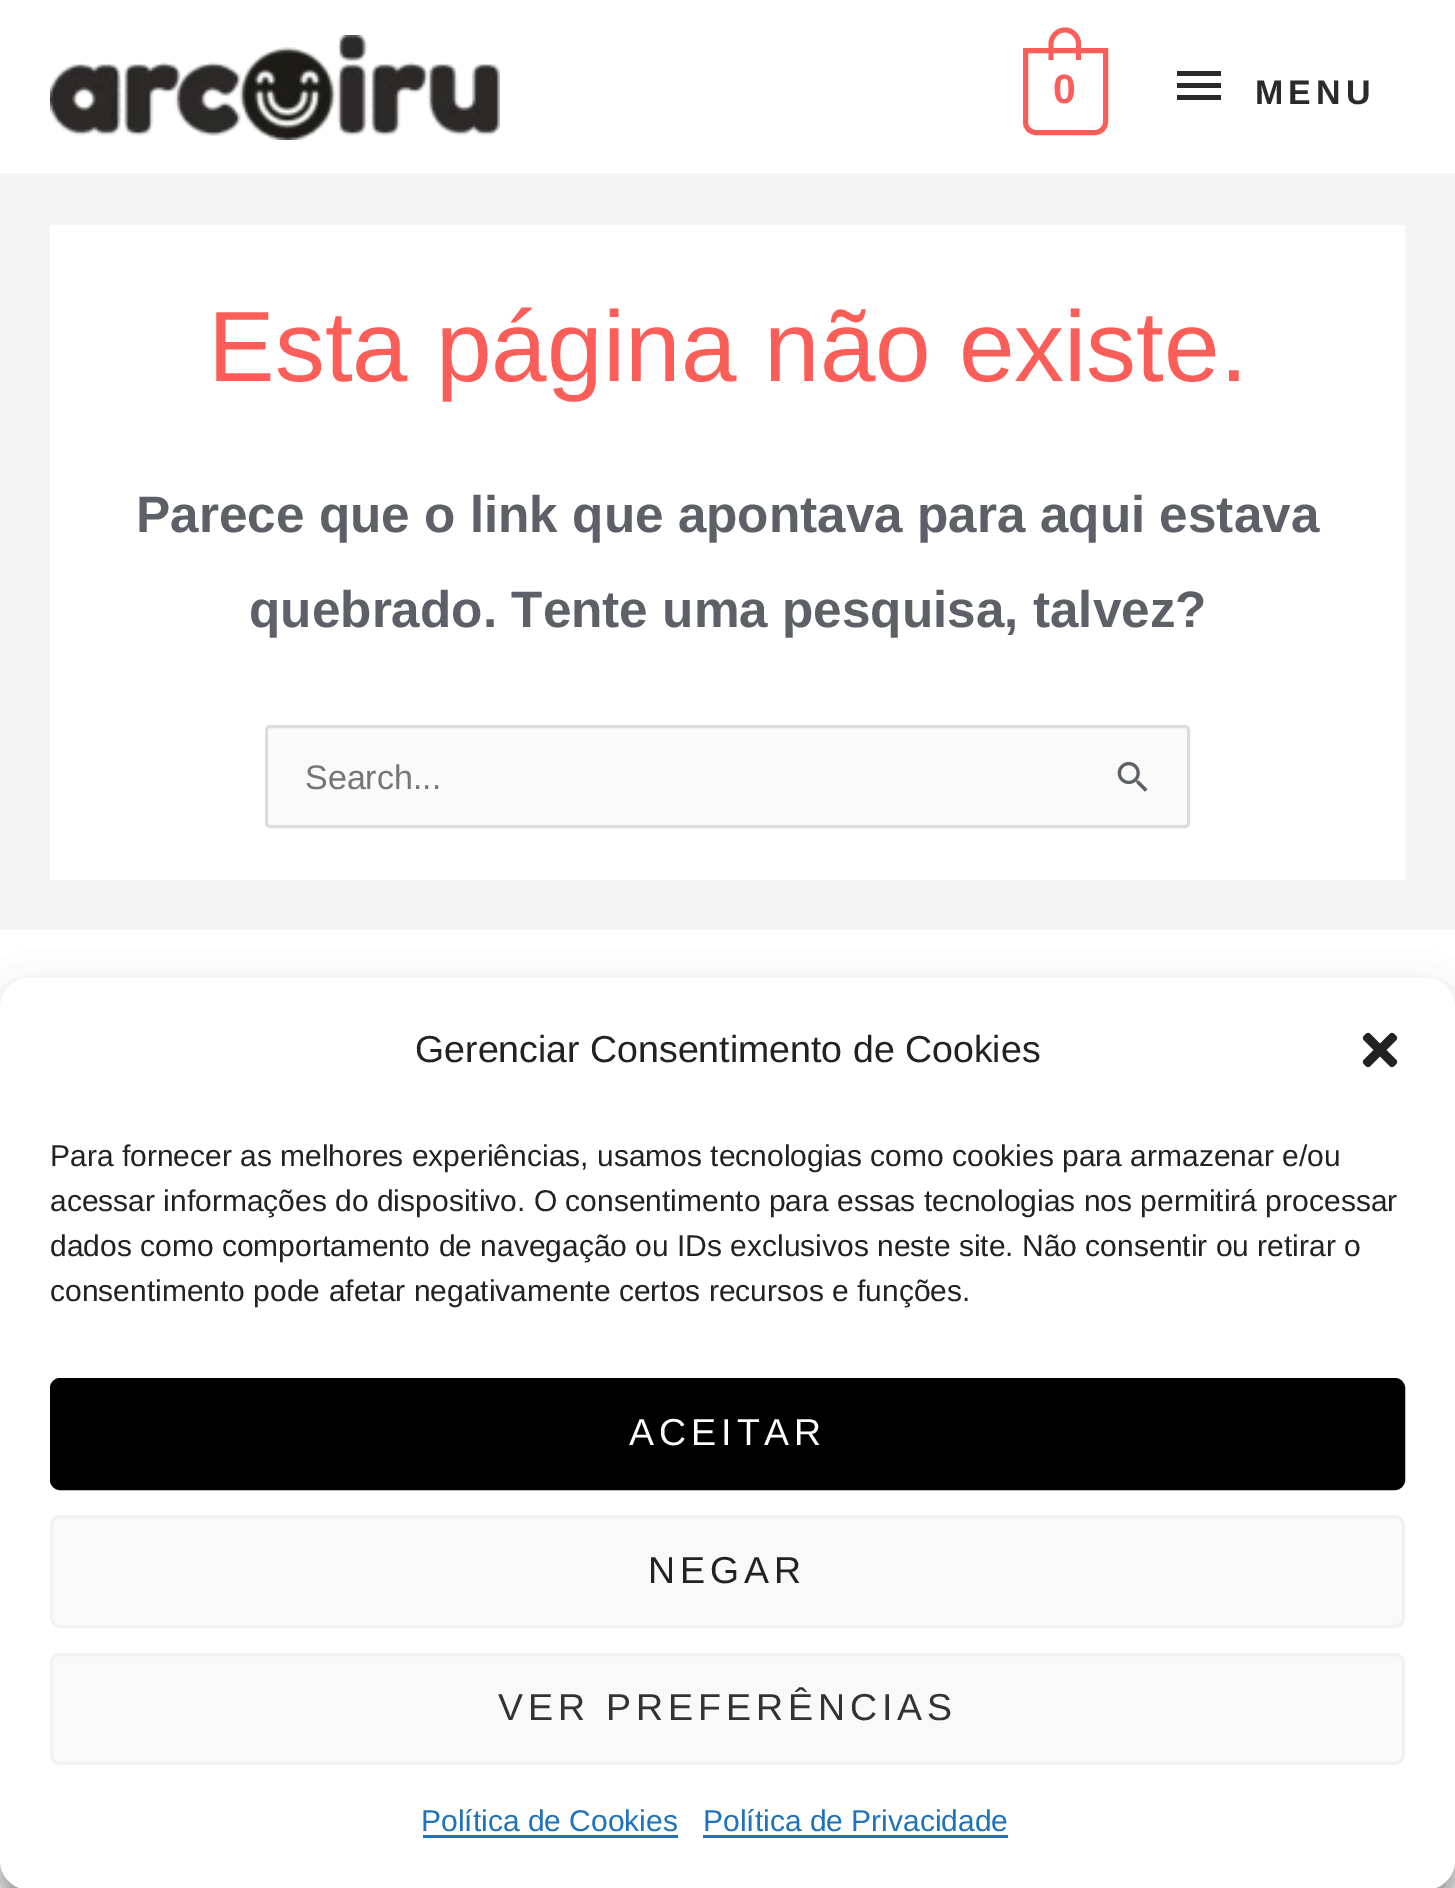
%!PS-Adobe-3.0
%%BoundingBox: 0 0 1455 1888
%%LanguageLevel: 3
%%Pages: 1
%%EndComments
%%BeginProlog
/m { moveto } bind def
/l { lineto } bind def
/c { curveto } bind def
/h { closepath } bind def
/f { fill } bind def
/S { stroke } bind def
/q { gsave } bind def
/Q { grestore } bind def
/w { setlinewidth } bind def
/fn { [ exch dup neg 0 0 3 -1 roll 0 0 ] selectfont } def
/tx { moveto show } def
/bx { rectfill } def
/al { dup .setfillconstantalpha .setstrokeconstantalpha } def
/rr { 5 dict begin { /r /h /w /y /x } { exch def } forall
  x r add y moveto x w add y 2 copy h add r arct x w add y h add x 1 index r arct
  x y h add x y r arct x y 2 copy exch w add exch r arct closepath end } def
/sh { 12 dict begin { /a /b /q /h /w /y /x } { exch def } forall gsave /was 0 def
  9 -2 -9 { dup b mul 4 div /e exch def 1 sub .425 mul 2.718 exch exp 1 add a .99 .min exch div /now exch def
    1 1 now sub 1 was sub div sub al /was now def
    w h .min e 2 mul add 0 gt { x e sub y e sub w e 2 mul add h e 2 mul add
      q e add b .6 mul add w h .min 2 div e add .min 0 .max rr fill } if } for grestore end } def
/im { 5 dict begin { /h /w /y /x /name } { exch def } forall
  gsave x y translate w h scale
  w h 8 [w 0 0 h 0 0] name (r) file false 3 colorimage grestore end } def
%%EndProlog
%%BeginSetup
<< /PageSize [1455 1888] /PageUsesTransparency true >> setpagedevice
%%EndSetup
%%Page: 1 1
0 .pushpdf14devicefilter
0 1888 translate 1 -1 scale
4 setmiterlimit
0.961 setgray
0 0 1455 1888 bx
1 setgray
0 0 1455 173 bx
(image0.raw) 50 35 450 105 im
0.984 0.369 0.345 setrgbcolor
5 w
1025.5 50.5 m 1105.5 50.5 l 1105.5 122 l 1105.5 128 1101 132.5 1095 132.5 c 1036 132.5 l 1030 132.5 1025.5 128 1025.5 122 c h S
1065 27.5 m 1074 27.5 1081 35 1081 44 c 1081 60 l 1048.5 60 l 1048.5 44 l 1048.5 35 1056 27.5 1065 27.5 c h 1065 32.5 m 1071 32.5 1076 37.5 1076 44 c 1076 60 l 1053.5 60 l 1053.5 44 l 1053.5 37.5 1058.5 32.5 1065 32.5 c h eofill
/LiberationSans-Bold 41 fn
(0) 1053 103 tx
0.165 setgray
1177 71 m 1221 71 l 1221 76 l 1177 76 l h 1177 88 m 1177 83 l 1221 83 l 1221 88 l h 1177 100 m 1177 95 l 1221 95 l 1221 100 l h f
/LiberationSans-Bold 34 fn
1255 104 m 5 0 (MENU) ashow
1 setgray
50 225 1355 655 bx
/LiberationSans-Regular 100 fn
0.984 0.369 0.345 setrgbcolor
(Esta página não existe.) 208 381 tx
/LiberationSans-Bold 51.3 fn
0.365 0.38 0.404 setrgbcolor
(Parece que o link que apontava para aqui estava) 136 532 tx
(quebrado. Tente uma pesquisa, talvez?) 249 627 tx
0.98 setgray
266.5 726.5 922 100 3.5 rr q f Q
0.867 setgray
3 w
S
/LiberationSans-Regular 34 fn
0.459 setgray
(Search...) 305 789 tx
(image1.raw) 1117 761 31 31 im
1 setgray
0 930 1455 78 bx
0 setgray
0 993 1455 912 30 7.5 0.23 sh
0 1003 1455 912 30 25 0.19 sh
1 setgray
0 978 1455 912 30 rr f
/LiberationSans-Regular 37.5 fn
0.133 setgray
(Gerenciar Consentimento de Cookies) 415 1062 tx
(image2.raw) 1362 1032 36 36 im
/LiberationSans-Regular 30 fn
(Para fornecer as melhores experiências, usamos tecnologias como cookies para armazenar e/ou) 50 1166 tx
(acessar informações do dispositivo. O consentimento para essas tecnologias nos permitirá processar) 50 1211 tx
(dados como comportamento de navegação ou IDs exclusivos neste site. Não consentir ou retirar o) 50 1256 tx
(consentimento pode afetar negativamente certos recursos e funções.) 50 1301 tx
0 setgray
51.5 1379.5 1352 109 8.5 rr q f Q
S
/LiberationSans-Regular 37.5 fn
1 setgray
629 1445 m 5 0 (ACEITAR) ashow
0.976 setgray
51.5 1516.5 1352 110 8.5 rr q f Q
0.949 setgray
S
0.133 setgray
648 1583 m 5 0 (NEGAR) ashow
0.976 setgray
51.5 1654.5 1352 109 8.5 rr q f Q
0.949 setgray
S
0.2 setgray
498 1720 m 5 0 (VER PREFERÊNCIAS) ashow
/LiberationSans-Regular 30 fn
0.118 0.451 0.745 setrgbcolor
(Política de Cookies) 421 1831 tx
423 1835 255 3 bx
(Política de Privacidade) 703 1831 tx
703 1835 305 3 bx
.poppdf14devicefilter showpage
%%EOF
